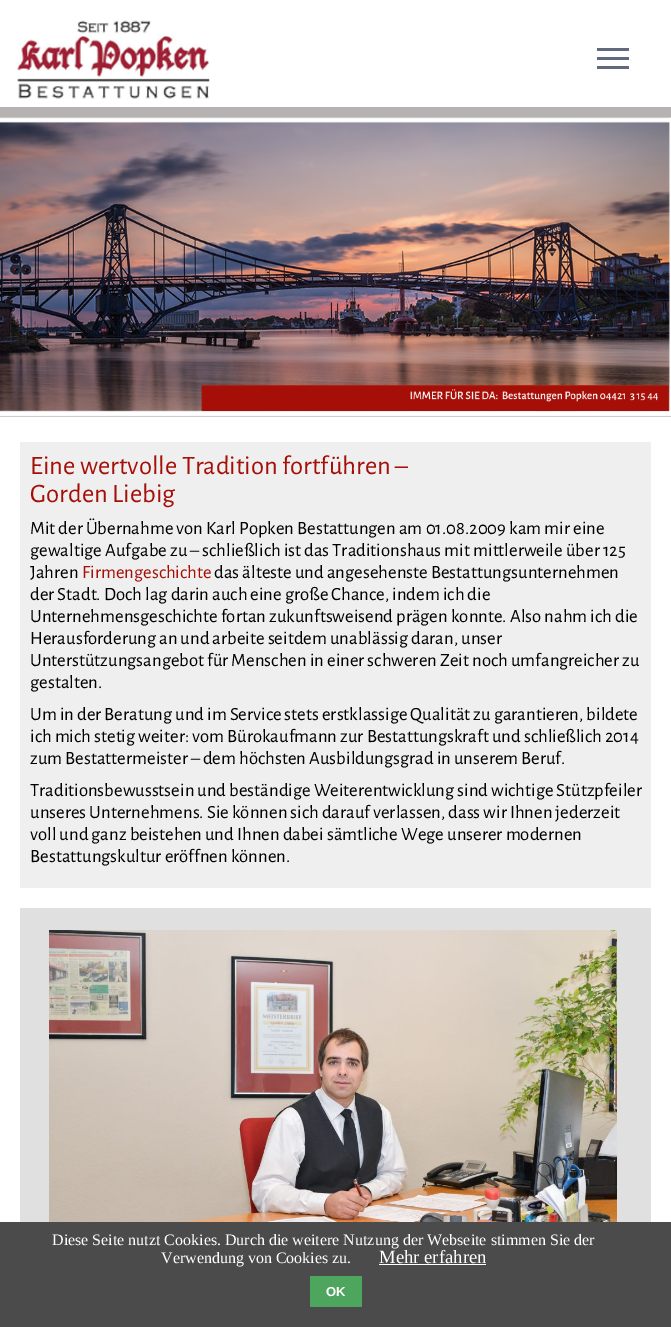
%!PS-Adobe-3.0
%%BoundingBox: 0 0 671 1327
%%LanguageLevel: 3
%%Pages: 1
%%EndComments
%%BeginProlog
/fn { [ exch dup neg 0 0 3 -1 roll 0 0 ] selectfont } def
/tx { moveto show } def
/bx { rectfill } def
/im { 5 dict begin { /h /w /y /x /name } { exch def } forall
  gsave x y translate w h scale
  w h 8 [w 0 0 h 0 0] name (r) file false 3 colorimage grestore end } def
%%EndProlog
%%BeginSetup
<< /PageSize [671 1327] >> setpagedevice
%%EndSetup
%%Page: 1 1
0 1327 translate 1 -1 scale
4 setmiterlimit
1 setgray
0 0 671 1327 bx
(image0.raw) 17 20 193 79 im
(image1.raw) 597 48 32 21 im
0.71 0.698 0.694 setrgbcolor
0 107 671 310 bx
(image2.raw) 0 117 671 300 im
0.937 setgray
20 442 631 446 bx
/AlegreyaSans-Regular 26.7 fn
0.647 0.059 0.031 setrgbcolor
(Eine wertvolle Tradition fortführen –) 30 474 tx
(Gorden Liebig) 30 502 tx
/AlegreyaSans-Regular 18.7 fn
0 setgray
(Mit der Übernahme von Karl Popken Bestattungen am 01.08.2009 kam mir eine) 30 534 tx
(gewaltige Aufgabe zu – schließlich ist das Traditionshaus mit mittlerweile über 125) 30 556 tx
(Jahren) 30 578 tx
0.647 0.059 0.031 setrgbcolor
(Firmengeschichte) 82 578 tx
0 setgray
(das älteste und angesehenste Bestattungsunternehmen) 214 578 tx
(der Stadt. Doch lag darin auch eine große Chance, indem ich die) 30 600 tx
(Unternehmensgeschichte fortan zukunftsweisend prägen konnte. Also nahm ich die) 30 622 tx
(Herausforderung an und arbeite seitdem unablässig daran, unser) 30 644 tx
(Unterstützungsangebot für Menschen in einer schweren Zeit noch umfangreicher zu) 30 666 tx
(gestalten.) 30 688 tx
(Um in der Beratung und im Service stets erstklassige Qualität zu garantieren, bildete) 30 720 tx
(ich mich stetig weiter: vom Bürokaufmann zur Bestattungskraft und schließlich 2014) 30 742 tx
(zum Bestattermeister – dem höchsten Ausbildungsgrad in unserem Beruf.) 30 764 tx
(Traditionsbewusstsein und beständige Weiterentwicklung sind wichtige Stützpfeiler) 30 796 tx
(unseres Unternehmens. Sie können sich darauf verlassen, dass wir Ihnen jederzeit) 30 818 tx
(voll und ganz beistehen und Ihnen dabei sämtliche Wege unserer modernen) 30 840 tx
(Bestattungskultur eröffnen können.) 30 862 tx
0.878 setgray
20 908 631 314 bx
(image3.raw) 49 930 568 292 im
0.294 setgray
0 1222 671 105 bx
/LiberationSerif-Regular 16 fn
1 setgray
(Diese Seite nutzt Cookies. Durch die weitere Nutzung der Webseite stimmen Sie der) 52 1245 tx
(Verwendung von Cookies zu.) 161 1263 tx
/LiberationSerif-Regular 18.7 fn
(Mehr erfahren) 379 1263 tx
379 1264 107 1 bx
0.306 0.647 0.369 setrgbcolor
310 1276 52 31 bx
/LiberationSans-Bold 13 fn
1 setgray
(OK) 326 1296 tx
showpage
%%EOF
